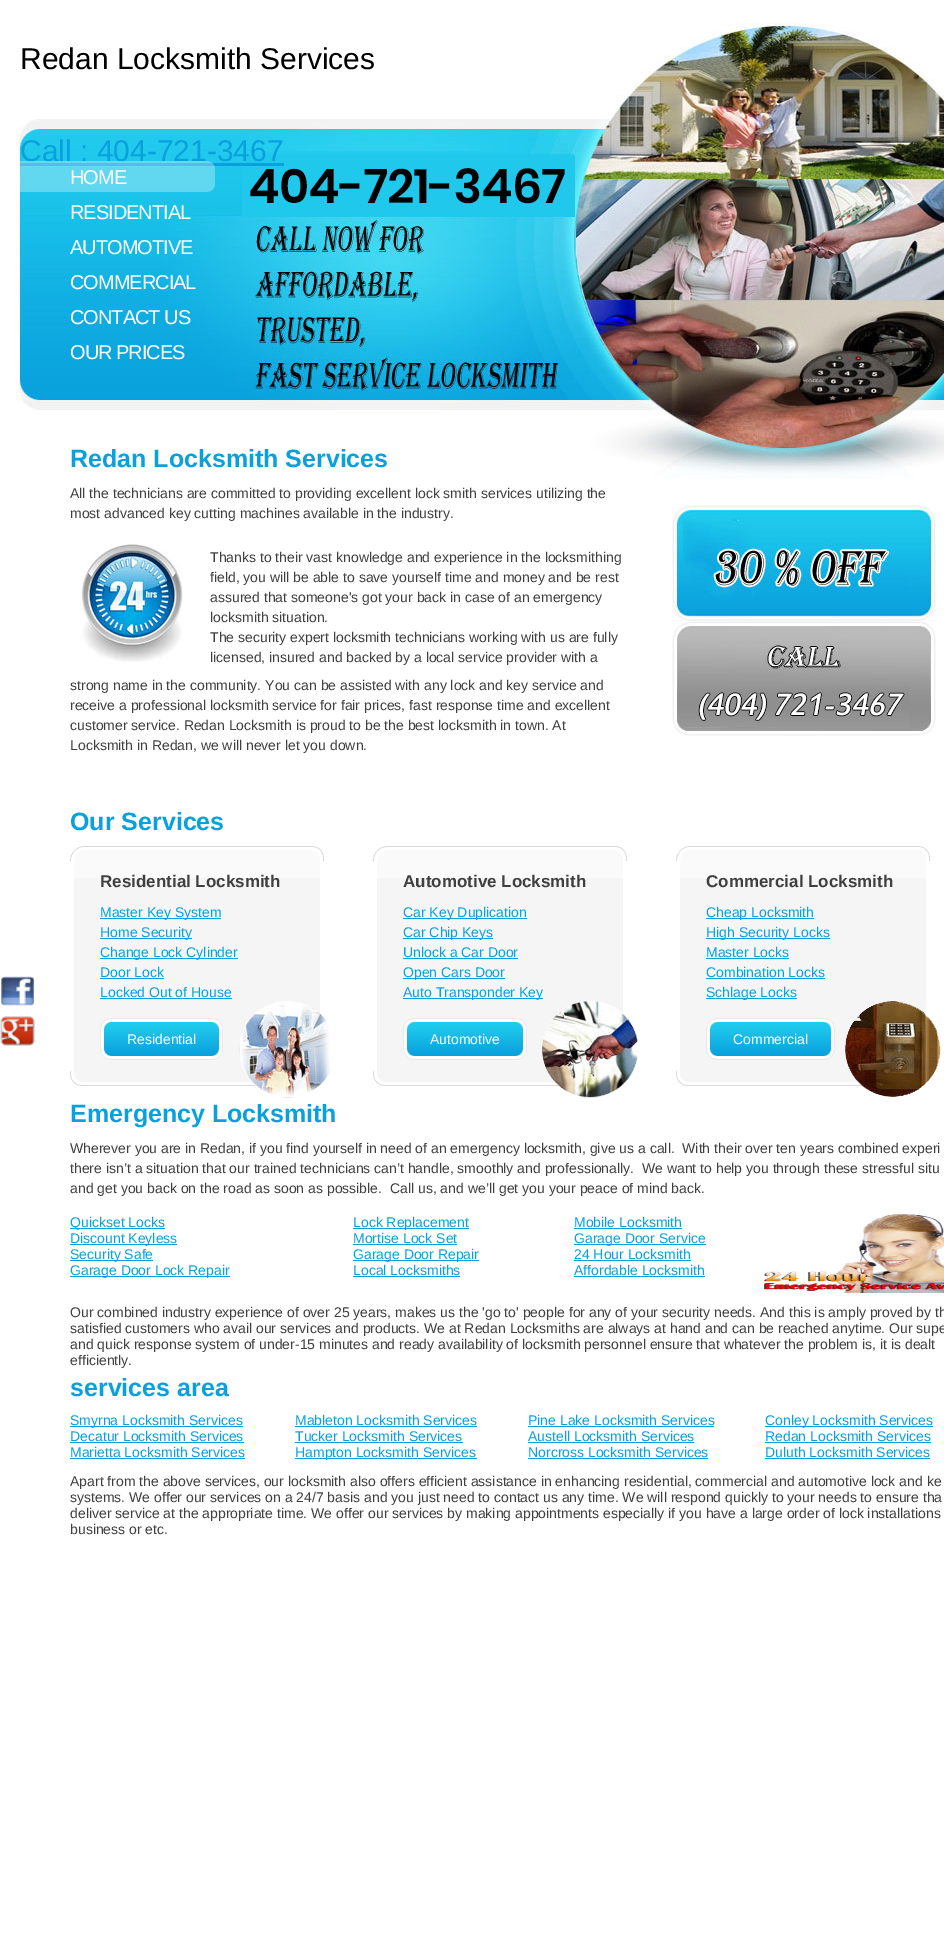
%!PS-Adobe-3.0
%%BoundingBox: 0 0 944 1952
%%LanguageLevel: 3
%%Pages: 1
%%EndComments
%%BeginProlog
/m { moveto } bind def
/fn { [ exch dup neg 0 0 3 -1 roll 0 0 ] selectfont } def
/tx { moveto show } def
/bx { rectfill } def
/im { 5 dict begin { /h /w /y /x /name } { exch def } forall
  gsave x y translate w h scale
  w h 8 [w 0 0 h 0 0] name (r) file false 3 colorimage grestore end } def
%%EndProlog
%%BeginSetup
<< /PageSize [944 1952] >> setpagedevice
%%EndSetup
%%Page: 1 1
0 1952 translate 1 -1 scale
4 setmiterlimit
1 setgray
0 0 944 1952 bx
(image0.raw) 1 976 34 30 im
(image1.raw) 0 1016 35 30 im
(image2.raw) 16 23 928 456 im
/LiberationSans-Regular 30 fn
0 setgray
(Redan Locksmith Services) 20 69 tx
0.035 0.631 0.867 setrgbcolor
(Call : 404-721-3467) 20 161 tx
20 163 264 3 bx
(image3.raw) 20 161 195 31 im
/LiberationSans-Regular 20 fn
1 setgray
70 184 m -1 0 (HOME) ashow
70 219 m -1 0 (RESIDENTIAL) ashow
70 254 m -1 0 (AUTOMOTIVE) ashow
70 289 m -1 0 (COMMERCIAL) ashow
70 324 m -1 0 (CONTACT US) ashow
70 359 m -1 0 (OUR PRICES) ashow
/LiberationSans-Bold 25 fn
0.035 0.631 0.867 setrgbcolor
(Redan Locksmith Services) 70 467 tx
/LiberationSans-Regular 14 fn
0.247 setgray
(All the technicians are committed to providing excellent lock smith services utilizing the) 70 498 tx
(most advanced key cutting machines available in the industry.) 70 518 tx
(image4.raw) 80 544 103 118 im
(Thanks to their vast knowledge and experience in the locksmithing) 210 562 tx
(field, you will be able to save yourself time and money and be rest) 210 582 tx
(assured that someone's got your back in case of an emergency) 210 602 tx
(locksmith situation.) 210 622 tx
(The security expert locksmith technicians working with us are fully) 210 642 tx
(licensed, insured and backed by a local service provider with a) 210 662 tx
(strong name in the community. You can be assisted with any lock and key service and) 70 690 tx
(receive a professional locksmith service for fair prices, fast response time and excellent) 70 710 tx
(customer service. Redan Locksmith is proud to be the best locksmith in town. At) 70 730 tx
(Locksmith in Redan, we will never let you down.) 70 750 tx
(image5.raw) 672 505 264 231 im
/LiberationSans-Bold 25 fn
0.035 0.631 0.867 setrgbcolor
(Our Services) 70 830 tx
0.961 setgray
74 878 246 193 bx
(image6.raw) 74 846 246 32 im
(image7.raw) 74 1071 250 27 im
(image8.raw) 70 846 13 15 im
(image9.raw) 313 846 11 15 im
(image10.raw) 319 1081 5 5 im
(image11.raw) 70 1071 11 15 im
/LiberationSans-Bold 17 fn
0.247 setgray
(Residential Locksmith) 100 887 tx
0.035 0.631 0.867 setrgbcolor
100 918 121 1 bx
/LiberationSans-Regular 14 fn
(Master Key System) 100 917 tx
100 938 92 1 bx
(Home Security) 100 937 tx
100 958 138 1 bx
(Change Lock Cylinder) 100 957 tx
(Door Lock) 100 977 tx
100 978 64 1 bx
(Locked Out of House) 100 997 tx
100 998 132 1 bx
(image12.raw) 211 1018 12 42 im
(image13.raw) 100 1018 12 42 im
(image14.raw) 112 1018 99 42 im
1 setgray
(Residential) 127 1044 tx
(image15.raw) 239 1001 91 97 im
0.961 setgray
377 878 246 193 bx
(image6.raw) 377 846 246 32 im
(image7.raw) 377 1071 250 27 im
(image8.raw) 373 846 13 15 im
(image9.raw) 616 846 11 15 im
(image10.raw) 622 1081 5 5 im
(image11.raw) 373 1071 11 15 im
/LiberationSans-Bold 17 fn
0.247 setgray
(Automotive Locksmith) 403 887 tx
0.035 0.631 0.867 setrgbcolor
403 918 124 1 bx
/LiberationSans-Regular 14 fn
(Car Key Duplication) 403 917 tx
403 938 90 1 bx
(Car Chip Keys) 403 937 tx
(Unlock a Car Door) 403 957 tx
403 958 115 1 bx
403 978 102 1 bx
(Open Cars Door) 403 977 tx
403 998 140 1 bx
(Auto Transponder Key) 403 997 tx
(image12.raw) 515 1018 12 42 im
(image13.raw) 403 1018 12 42 im
(image16.raw) 415 1018 100 42 im
1 setgray
(Automotive) 430 1044 tx
(image17.raw) 542 1001 97 97 im
0.961 setgray
680 878 246 193 bx
(image6.raw) 680 846 246 32 im
(image7.raw) 680 1071 250 27 im
(image8.raw) 676 846 13 15 im
(image9.raw) 919 846 11 15 im
(image18.raw) 923 1079 7 7 im
(image11.raw) 676 1071 11 15 im
/LiberationSans-Bold 17 fn
0.247 setgray
(Commercial Locksmith) 706 887 tx
0.035 0.631 0.867 setrgbcolor
706 918 108 1 bx
/LiberationSans-Regular 14 fn
(Cheap Locksmith) 706 917 tx
706 938 124 1 bx
(High Security Locks) 706 937 tx
(Master Locks) 706 957 tx
706 958 83 1 bx
(Combination Locks) 706 977 tx
706 978 119 1 bx
706 998 91 1 bx
(Schlage Locks) 706 997 tx
(image12.raw) 823 1018 12 42 im
(image13.raw) 706 1018 12 42 im
(image19.raw) 718 1018 105 42 im
1 setgray
(Commercial) 733 1044 tx
(image20.raw) 845 1001 96 96 im
/LiberationSans-Bold 25 fn
0.035 0.631 0.867 setrgbcolor
(Emergency Locksmith) 70 1122 tx
/LiberationSans-Regular 14 fn
0.247 setgray
(Wherever you are in Redan, if you find yourself in need of an emergency locksmith, give us a call.  With their over ten years combined experi) 70 1153 tx
(there isn’t a situation that our trained technicians can’t handle, smoothly and professionally.  We want to help you through these stressful situ) 70 1173 tx
(and get you back on the road as soon as possible.  Call us, and we’ll get you your peace of mind back.) 70 1193 tx
0.035 0.631 0.867 setrgbcolor
70 1228 95 1 bx
(Quickset Locks) 70 1227 tx
70 1244 107 1 bx
(Discount Keyless) 70 1243 tx
70 1260 83 1 bx
(Security Safe) 70 1259 tx
70 1276 160 1 bx
(Garage Door Lock Repair) 70 1275 tx
353 1228 116 1 bx
(Lock Replacement) 353 1227 tx
(Mortise Lock Set) 353 1243 tx
353 1244 104 1 bx
353 1260 126 1 bx
(Garage Door Repair) 353 1259 tx
(Local Locksmiths) 353 1275 tx
353 1276 107 1 bx
(Mobile Locksmith) 574 1227 tx
574 1228 108 1 bx
574 1244 132 1 bx
(Garage Door Service) 574 1243 tx
(24 Hour Locksmith) 574 1259 tx
574 1260 117 1 bx
(Affordable Locksmith) 574 1275 tx
574 1276 131 1 bx
(image21.raw) 764 1214 180 79 im
0.247 setgray
(Our combined industry experience of over 25 years, makes us the 'go to' people for any of your security needs. And this is amply proved by th) 70 1317 tx
(satisfied customers who avail our services and products. We at Redan Locksmiths are always at hand and can be reached anytime. Our supe) 70 1333 tx
(and quick response system of under-15 minutes and ready availability of locksmith personnel ensure that whatever the problem is, it is dealt) 70 1349 tx
(efficiently.) 70 1365 tx
/LiberationSans-Bold 25 fn
0.035 0.631 0.867 setrgbcolor
(services area) 70 1396 tx
70 1426 173 1 bx
/LiberationSans-Regular 14 fn
(Smyrna Locksmith Services) 70 1425 tx
(Decatur Locksmith Services) 70 1441 tx
70 1442 174 1 bx
(Marietta Locksmith Services) 70 1457 tx
70 1458 175 1 bx
(Mableton Locksmith Services) 295 1425 tx
295 1426 182 1 bx
(Tucker Locksmith Services) 295 1441 tx
295 1442 168 1 bx
295 1458 182 1 bx
(Hampton Locksmith Services) 295 1457 tx
(Pine Lake Locksmith Services) 528 1425 tx
528 1426 186 1 bx
(Austell Locksmith Services) 528 1441 tx
528 1442 166 1 bx
(Norcross Locksmith Services) 528 1457 tx
528 1458 180 1 bx
765 1426 168 1 bx
(Conley Locksmith Services) 765 1425 tx
(Redan Locksmith Services) 765 1441 tx
765 1442 166 1 bx
(Duluth Locksmith Services) 765 1457 tx
765 1458 165 1 bx
0.247 setgray
(Apart from the above services, our locksmith also offers efficient assistance in enhancing residential, commercial and automotive lock and ke) 70 1486 tx
(systems. We offer our services on a 24/7 basis and you just need to contact us any time. We will respond quickly to your needs to ensure tha) 70 1502 tx
(deliver service at the appropriate time. We offer our services by making appointments especially if you have a large order of lock installations) 70 1518 tx
(business or etc.) 70 1534 tx
showpage
%%EOF
